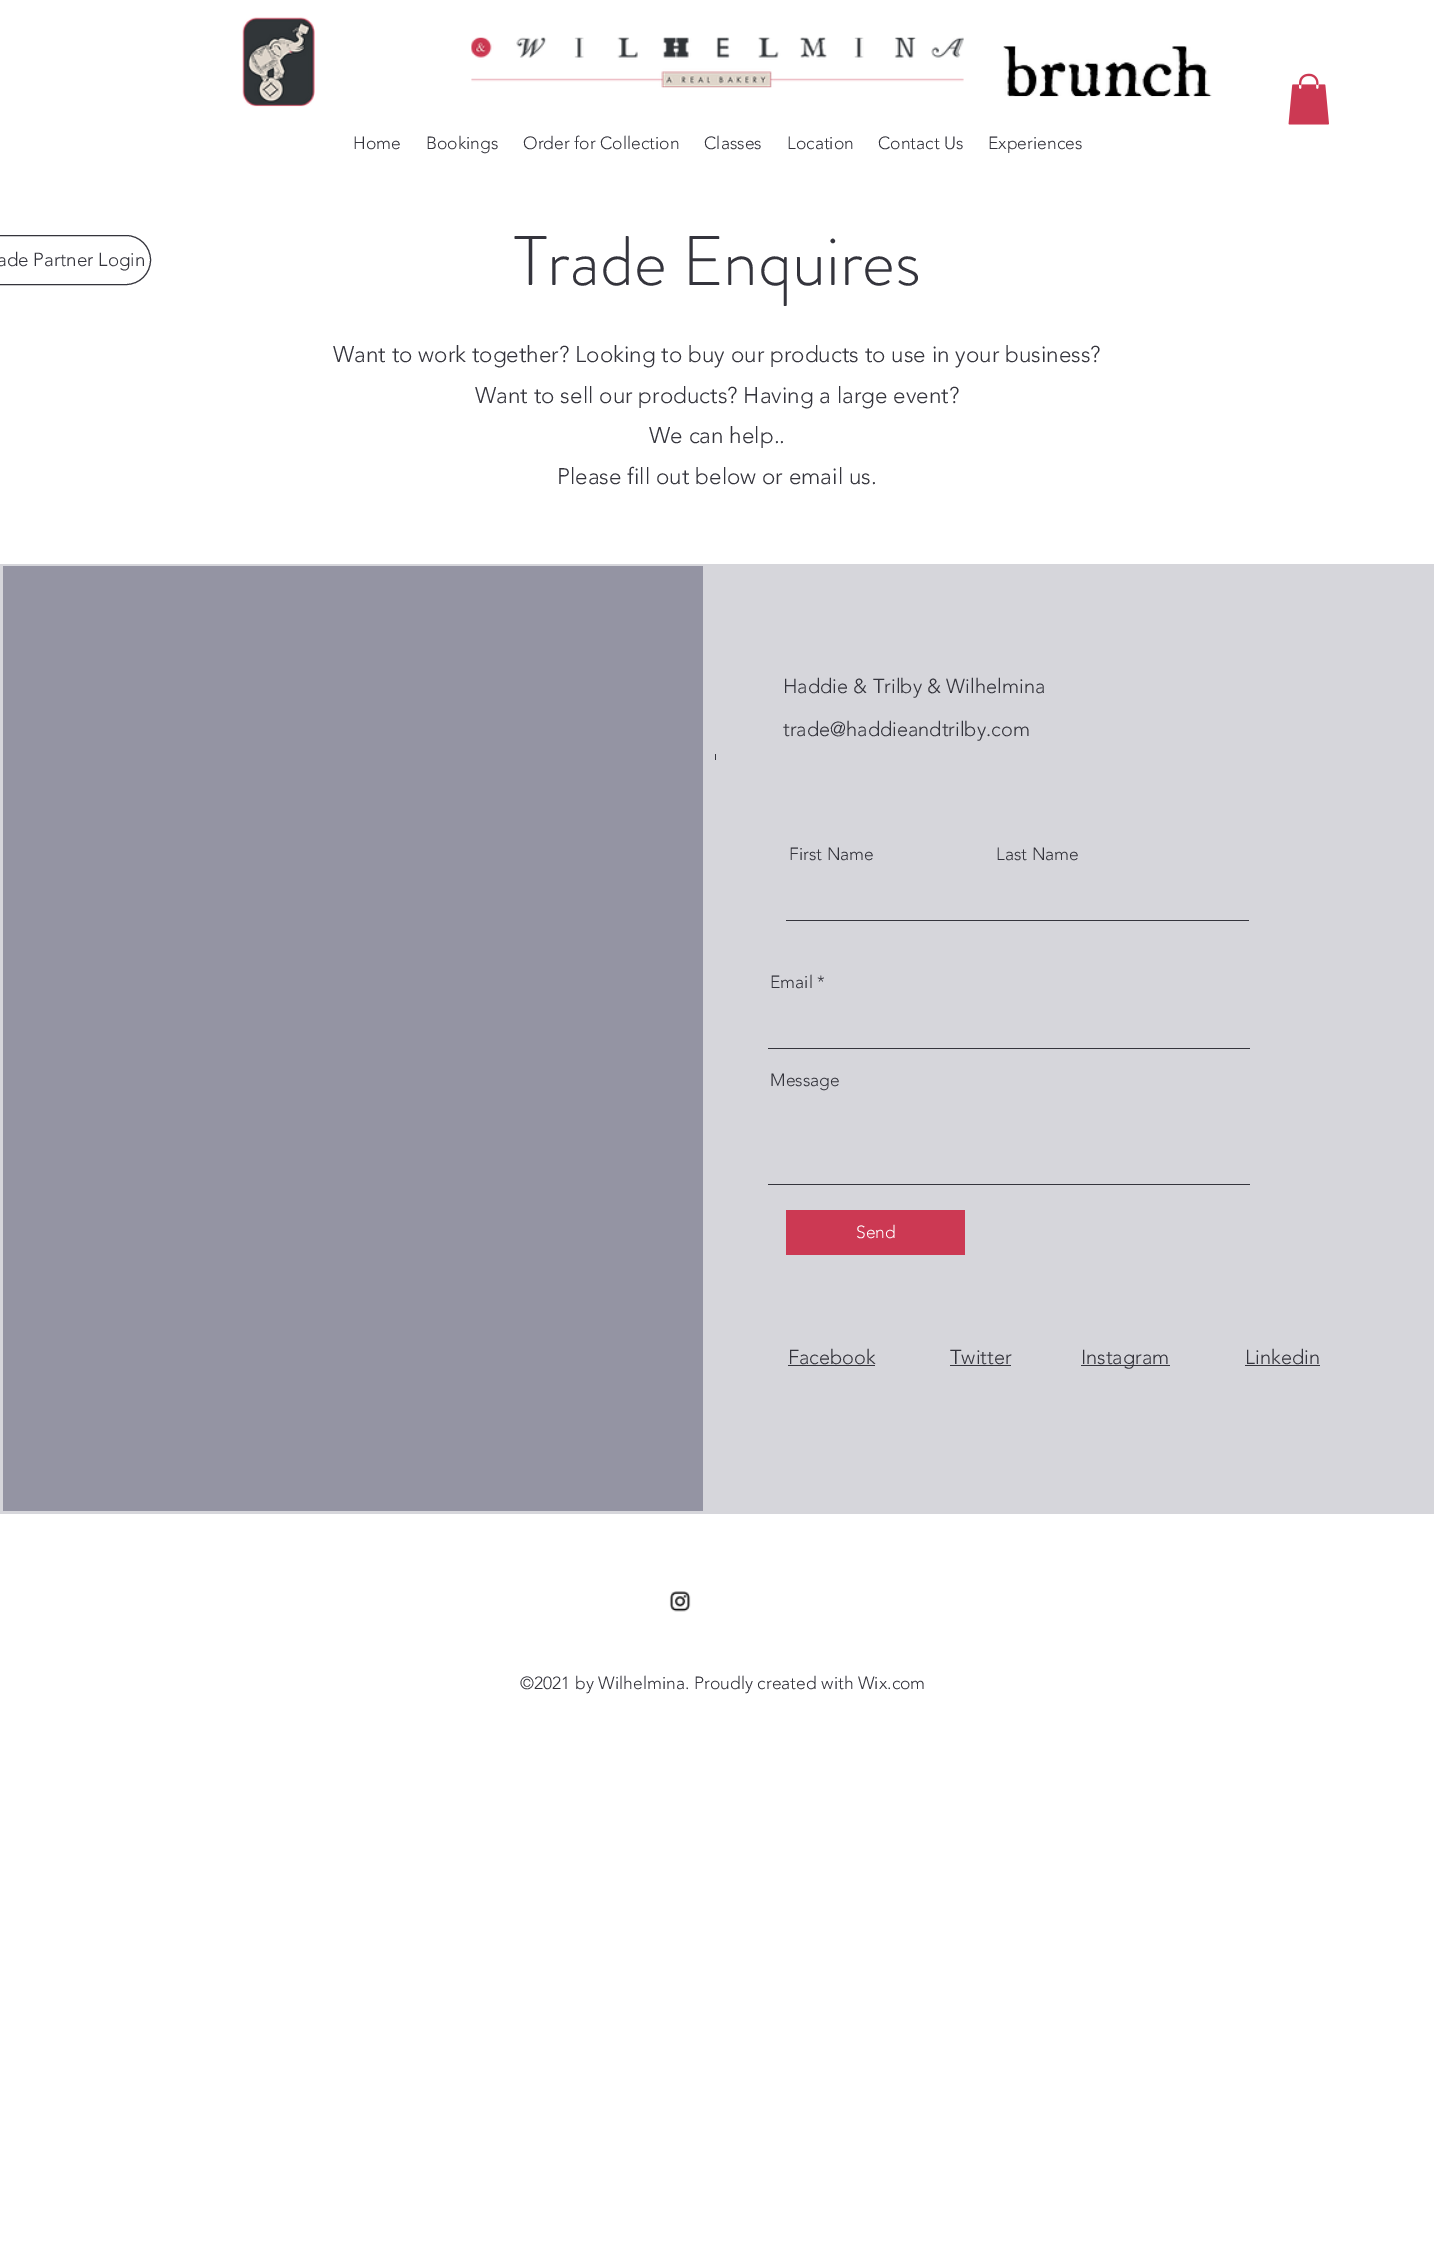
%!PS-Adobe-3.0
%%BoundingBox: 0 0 1434 2249
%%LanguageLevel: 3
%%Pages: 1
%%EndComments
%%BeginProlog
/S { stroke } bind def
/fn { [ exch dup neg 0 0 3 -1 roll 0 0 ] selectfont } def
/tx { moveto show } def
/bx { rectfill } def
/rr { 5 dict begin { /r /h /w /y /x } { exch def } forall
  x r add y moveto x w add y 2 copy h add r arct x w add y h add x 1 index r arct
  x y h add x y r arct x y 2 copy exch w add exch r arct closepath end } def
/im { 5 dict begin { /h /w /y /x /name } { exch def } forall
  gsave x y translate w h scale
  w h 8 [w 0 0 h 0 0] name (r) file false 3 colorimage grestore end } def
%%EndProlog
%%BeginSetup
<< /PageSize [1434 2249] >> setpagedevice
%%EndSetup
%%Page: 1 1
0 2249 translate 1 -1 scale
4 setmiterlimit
1 setgray
0 0 1434 2249 bx
(image0.raw) 242 17 73 90 im
(image1.raw) 471 37 493 51 im
(image2.raw) 1003 46 209 51 im
(image3.raw) 1288 73 41 52 im
/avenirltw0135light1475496-Light 17.5 fn
0.204 0.204 0.235 setrgbcolor
(Home) 353 149 tx
(Bookings) 426 149 tx
(Order for Collection) 523 149 tx
(Classes) 704 149 tx
(Location) 787 149 tx
(Contact Us) 878 149 tx
(Experiences) 988 149 tx
-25.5 235.5 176 49 24.5 rr S
/avenirltw0135light1475496-Light 18.75 fn
(ade Partner Login) -3 266 tx
/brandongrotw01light-Light 70 fn
(Trade Enquires) 514 285 tx
/avenirltw0135light1475496-Light 22.5 fn
(Want to work together? Looking to buy our products to use in your business?) 333 362 tx
(Want to sell our products? Having a large event?) 475 403 tx
(We can help..) 649 443 tx
(Please fill out below or email us.) 557 484 tx
0.839 0.839 0.859 setrgbcolor
0 564 1434 950 bx
0.58 0.58 0.639 setrgbcolor
3 566 700 945 bx
/avenirltw0135light1475496-Light 20 fn
0.204 0.204 0.235 setrgbcolor
(Haddie & Trilby & Wilhelmina) 783 693 tx
(trade@haddieandtrilby.com) 783 736 tx
715 754 1 6 bx
/avenirltw0135light1475496-Light 17.5 fn
(First Name) 789 860 tx
786 920 463 1 bx
(Last Name) 996 860 tx
(Email *) 770 988 tx
768 1048 482 1 bx
(Message) 770 1086 tx
768 1184 482 1 bx
0.8 0.224 0.325 setrgbcolor
786 1210 179 45 bx
1 setgray
(Send) 856 1238 tx
/avenirltw0135light1475496-Light 20 fn
0.204 0.204 0.235 setrgbcolor
(Facebook) 788 1364 tx
788 1365 87 1 bx
(Twitter) 950 1364 tx
950 1365 61 1 bx
1081 1365 89 1 bx
(Instagram) 1081 1364 tx
(Linkedin) 1245 1364 tx
1245 1365 75 1 bx
(image4.raw) 669 1591 22 21 im
/avenirltw0135light1475496-Light 17.5 fn
(©2021 by Wilhelmina. Proudly created with Wix.com) 520 1689 tx
showpage
%%EOF
